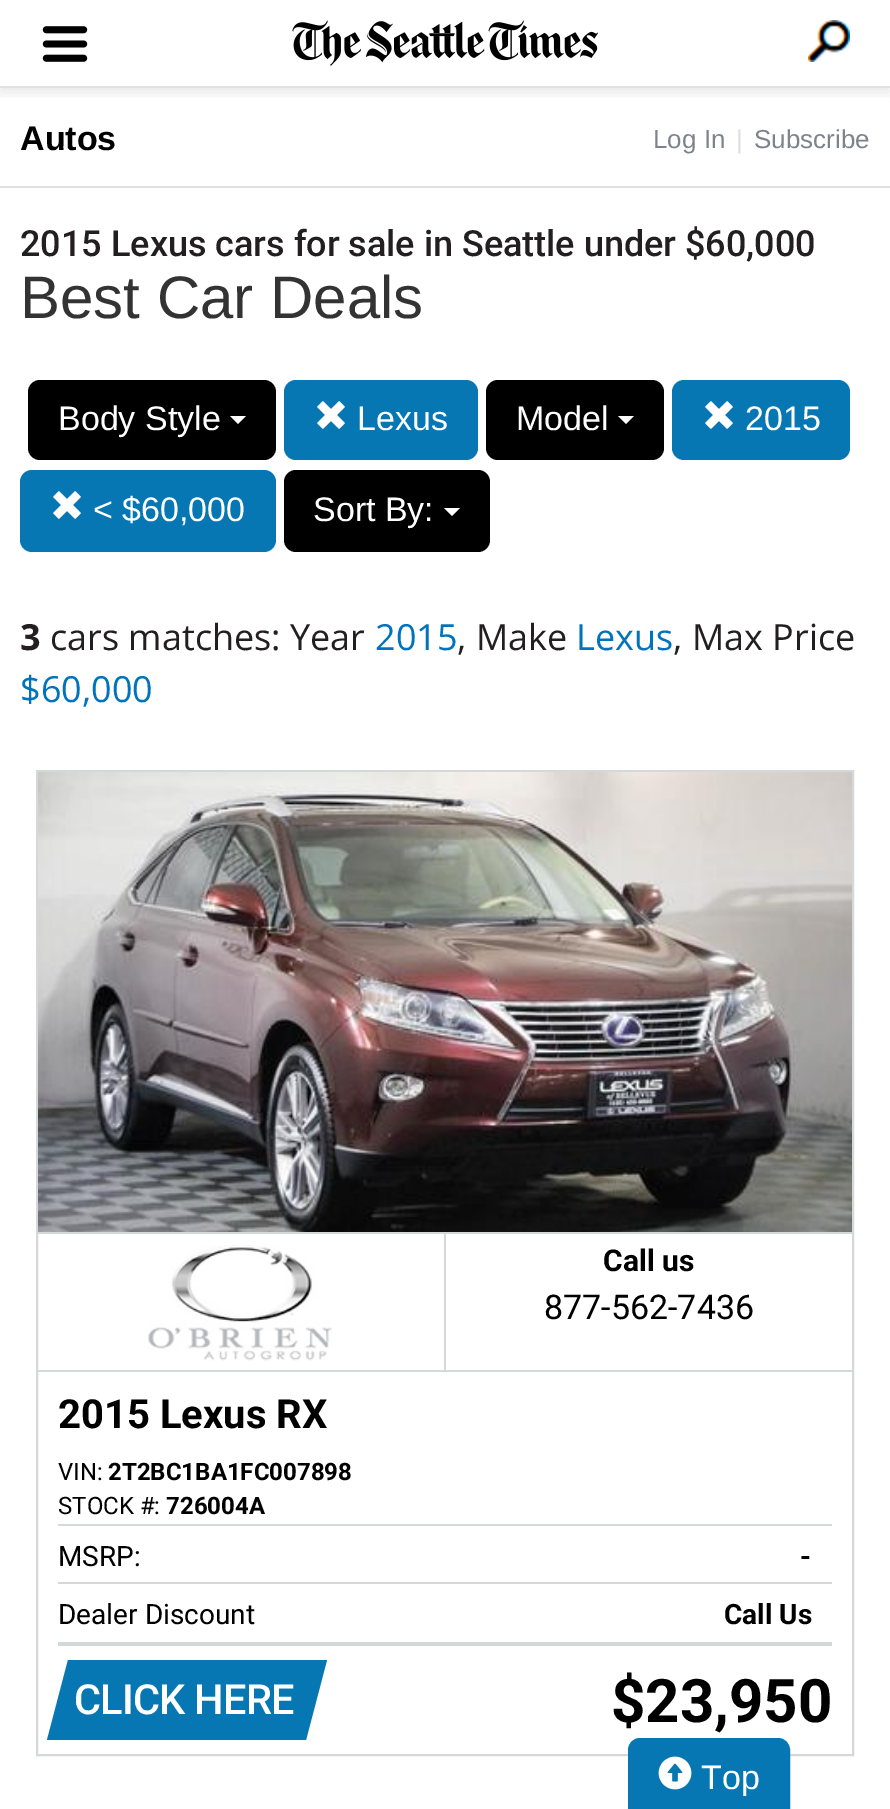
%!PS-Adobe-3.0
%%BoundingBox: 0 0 890 1809
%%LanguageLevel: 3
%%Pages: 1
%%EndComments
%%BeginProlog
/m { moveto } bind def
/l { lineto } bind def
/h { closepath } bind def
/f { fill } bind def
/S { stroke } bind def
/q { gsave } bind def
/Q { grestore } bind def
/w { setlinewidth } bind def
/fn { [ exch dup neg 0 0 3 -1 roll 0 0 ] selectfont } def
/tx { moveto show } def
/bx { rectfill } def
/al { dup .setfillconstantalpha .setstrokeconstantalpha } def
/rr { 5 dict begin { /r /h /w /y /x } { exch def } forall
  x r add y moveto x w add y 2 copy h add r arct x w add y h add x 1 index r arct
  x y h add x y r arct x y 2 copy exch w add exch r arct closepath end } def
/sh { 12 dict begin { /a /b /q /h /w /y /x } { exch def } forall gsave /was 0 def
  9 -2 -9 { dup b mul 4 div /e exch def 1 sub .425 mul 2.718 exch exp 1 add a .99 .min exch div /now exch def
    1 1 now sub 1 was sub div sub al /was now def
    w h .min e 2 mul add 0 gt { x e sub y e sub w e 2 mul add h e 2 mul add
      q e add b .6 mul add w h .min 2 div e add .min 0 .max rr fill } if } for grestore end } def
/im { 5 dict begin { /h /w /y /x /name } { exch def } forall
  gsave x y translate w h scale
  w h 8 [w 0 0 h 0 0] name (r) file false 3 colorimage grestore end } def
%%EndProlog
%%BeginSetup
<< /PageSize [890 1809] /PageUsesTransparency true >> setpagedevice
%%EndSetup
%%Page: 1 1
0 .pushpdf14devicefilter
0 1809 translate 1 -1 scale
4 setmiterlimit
1 setgray
0 0 890 1809 bx
q
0 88 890 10 rectclip
0 setgray
0 4 890 88 0 7 0.1 sh
Q
0.878 setgray
0 86 890 2 bx
(image0.raw) 42 26 46 36 im
(image1.raw) 292 20 306 46 im
(image2.raw) 808 20 42 42 im
0 186 890 2 bx
/LiberationSans-Bold 34 fn
0 setgray
(Autos) 20 150 tx
/LiberationSans-Regular 26 fn
0.494 0.514 0.545 setrgbcolor
(Log In) 653 148 tx
0.878 setgray
(|) 736 148 tx
0.494 0.514 0.545 setrgbcolor
(Subscribe) 754 148 tx
/Roboto-Medium 36 fn
0.137 0.122 0.125 setrgbcolor
(2015 Lexus cars for sale in Seattle under $60,000) 20 256 tx
/LiberationSans-Regular 60 fn
0.2 setgray
(Best Car Deals) 20 318 tx
0 setgray
28 380 248 80 12 rr f
/LiberationSans-Regular 34 fn
1 setgray
(Body Style) 58 430 tx
230 416 m 246 416 l 238 424 l h f
0.027 0.467 0.702 setrgbcolor
284 380 194 80 12 rr f
(image3.raw) 317 401 28 28 im
1 setgray
(Lexus) 357 430 tx
0 setgray
486 380 178 80 12 rr f
1 setgray
(Model) 516 430 tx
618 416 m 634 416 l 626 424 l h f
0.027 0.467 0.702 setrgbcolor
672 380 178 80 12 rr f
(image3.raw) 705 401 28 28 im
1 setgray
(2015) 745 430 tx
0.027 0.467 0.702 setrgbcolor
20 470 256 82 12 rr f
(image3.raw) 53 491 28 28 im
1 setgray
(< $60,000) 93 521 tx
0 setgray
284 470 206 82 12 rr f
1 setgray
(Sort By:) 313 521 tx
444 508 m 460 508 l 452 516 l h f
/OpenSans-Bold 36 fn
0.137 0.122 0.125 setrgbcolor
(3) 20 650 tx
/OpenSans-Regular 36 fn
(cars matches: Year) 50 650 tx
0 0.451 0.741 setrgbcolor
(2015) 375 650 tx
0.137 0.122 0.125 setrgbcolor
(, Make) 457 650 tx
0 0.451 0.741 setrgbcolor
(Lexus) 576 650 tx
0.137 0.122 0.125 setrgbcolor
(, Max Price) 673 650 tx
0 0.451 0.741 setrgbcolor
($60,000) 20 702 tx
0.831 0.847 0.851 setrgbcolor
2 w
37 771 816 984 rectstroke
(image4.raw) 38 772 814 460 im
38 1232 814 2 bx
444 1232 2 140 bx
38 1370 814 2 bx
(image5.raw) 148 1245 184 116 im
/Roboto-Bold 30 fn
0 setgray
(Call us) 603 1271 tx
/Roboto-Regular 34 fn
(877-562-7436) 544 1319 tx
/Roboto-Bold 40 fn
(2015 Lexus RX) 58 1428 tx
/Roboto-Regular 24 fn
(VIN:) 58 1480 tx
/Roboto-Bold 24 fn
(2T2BC1BA1FC007898) 108 1480 tx
/Roboto-Regular 24 fn
(STOCK #:) 58 1514 tx
/Roboto-Bold 24 fn
(726004A) 166 1514 tx
0.831 0.847 0.851 setrgbcolor
58 1524 774 2 bx
58 1582 774 2 bx
/Roboto-Regular 28 fn
0 setgray
(MSRP:) 58 1566 tx
/Roboto-Bold 28 fn
(-) 800 1566 tx
0.831 0.847 0.851 setrgbcolor
58 1642 774 4 bx
/Roboto-Regular 28 fn
0 setgray
(Dealer Discount) 58 1624 tx
/Roboto-Bold 28 fn
(Call Us) 724 1624 tx
0.027 0.467 0.702 setrgbcolor
68 1660 m 327 1660 l 306 1740 l 47 1740 l h f
/Roboto-Medium 41.5 fn
1 setgray
74 1714 m -0.75 0 (CLICK HERE) ashow
/Roboto-Bold 60 fn
0 setgray
($23,950) 611 1722 tx
0.027 0.467 0.702 setrgbcolor
629 1739 160 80 11 rr q f Q
S
(image6.raw) 658 1756 34 34 im
/LiberationSans-Regular 34 fn
1 setgray
(Top) 701 1789 tx
.poppdf14devicefilter showpage
%%EOF
